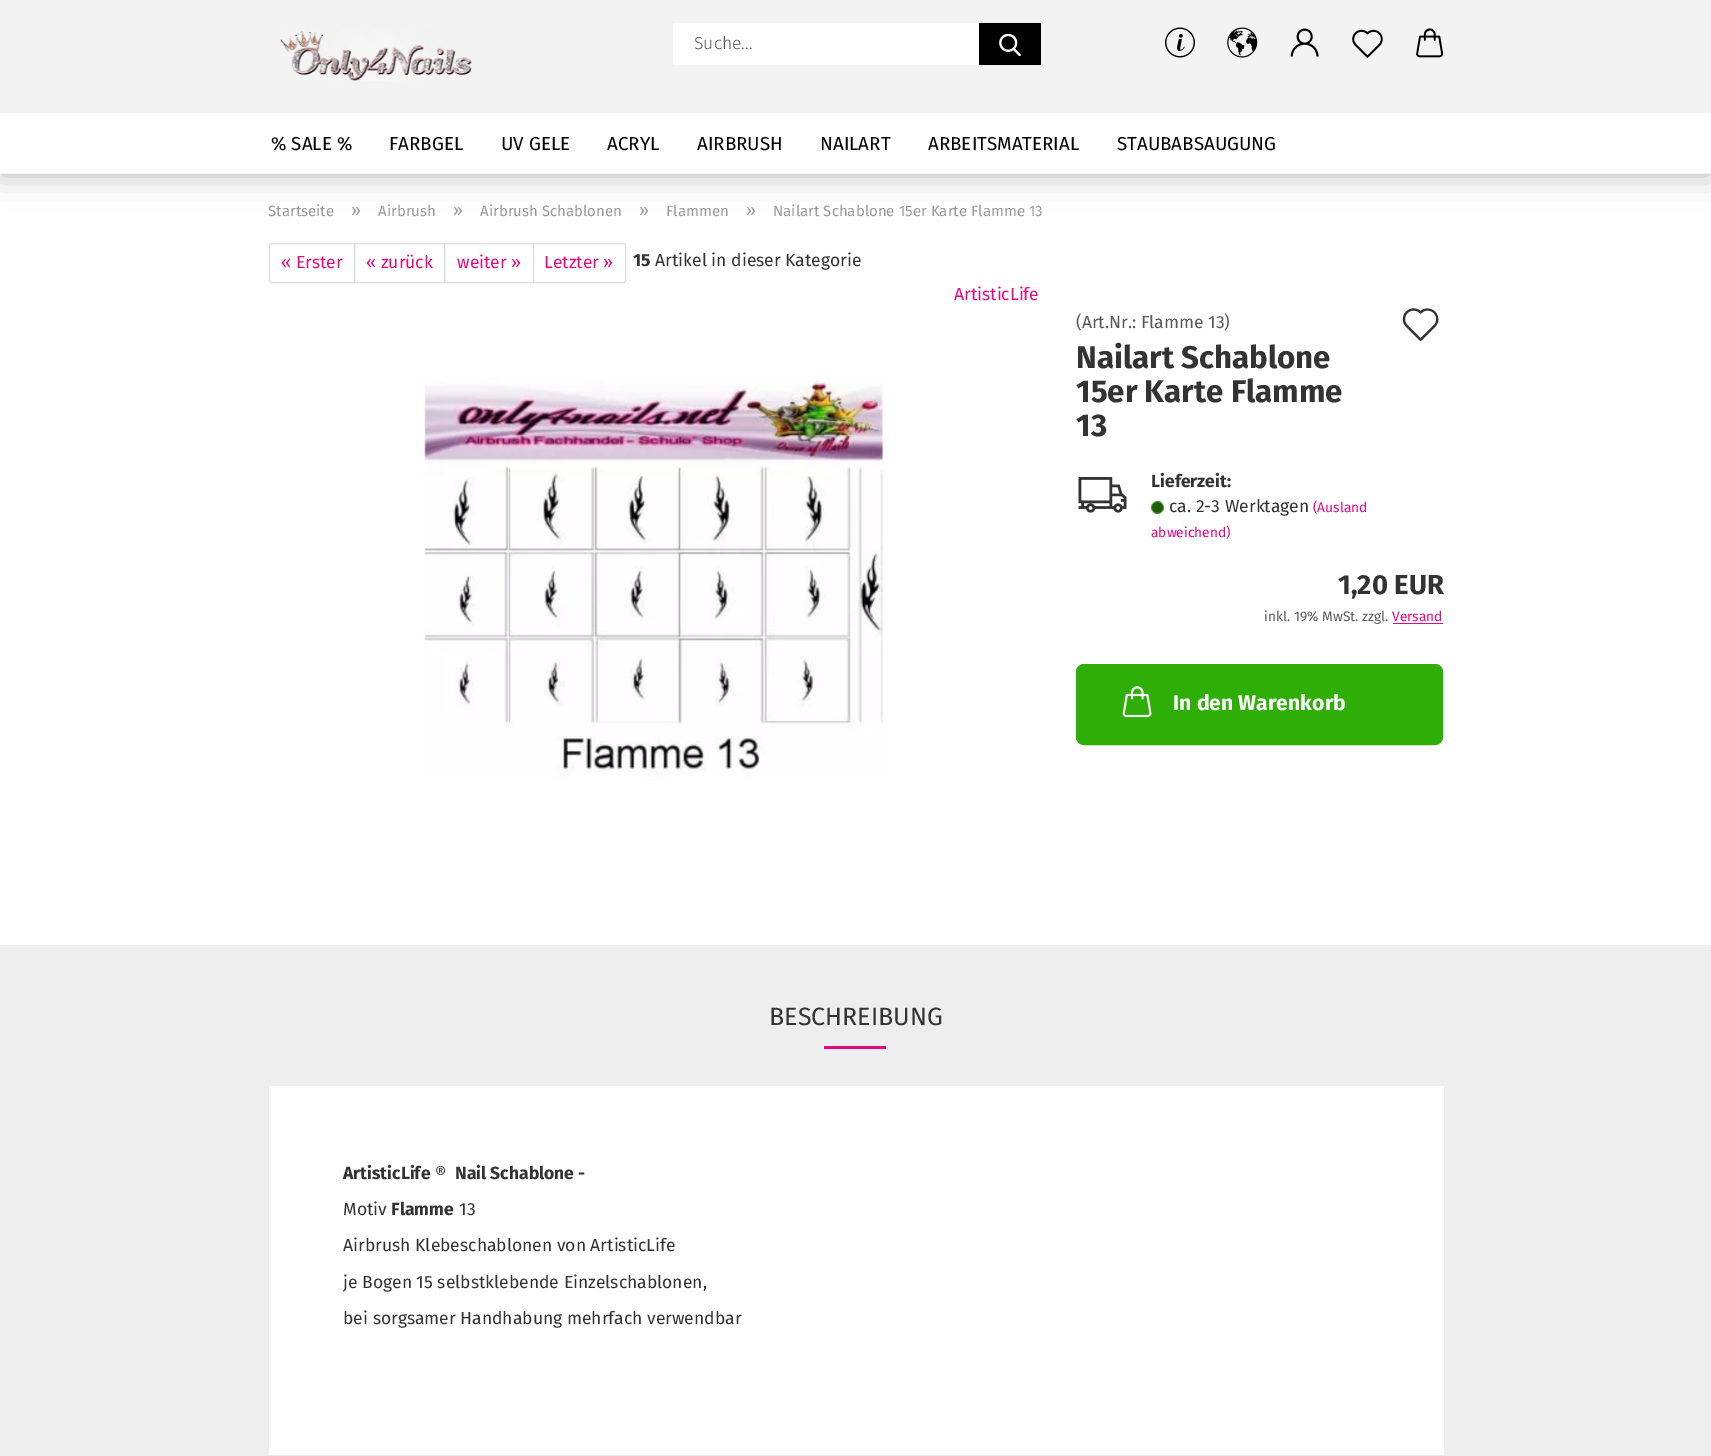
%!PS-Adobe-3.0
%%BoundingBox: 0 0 1711 1456
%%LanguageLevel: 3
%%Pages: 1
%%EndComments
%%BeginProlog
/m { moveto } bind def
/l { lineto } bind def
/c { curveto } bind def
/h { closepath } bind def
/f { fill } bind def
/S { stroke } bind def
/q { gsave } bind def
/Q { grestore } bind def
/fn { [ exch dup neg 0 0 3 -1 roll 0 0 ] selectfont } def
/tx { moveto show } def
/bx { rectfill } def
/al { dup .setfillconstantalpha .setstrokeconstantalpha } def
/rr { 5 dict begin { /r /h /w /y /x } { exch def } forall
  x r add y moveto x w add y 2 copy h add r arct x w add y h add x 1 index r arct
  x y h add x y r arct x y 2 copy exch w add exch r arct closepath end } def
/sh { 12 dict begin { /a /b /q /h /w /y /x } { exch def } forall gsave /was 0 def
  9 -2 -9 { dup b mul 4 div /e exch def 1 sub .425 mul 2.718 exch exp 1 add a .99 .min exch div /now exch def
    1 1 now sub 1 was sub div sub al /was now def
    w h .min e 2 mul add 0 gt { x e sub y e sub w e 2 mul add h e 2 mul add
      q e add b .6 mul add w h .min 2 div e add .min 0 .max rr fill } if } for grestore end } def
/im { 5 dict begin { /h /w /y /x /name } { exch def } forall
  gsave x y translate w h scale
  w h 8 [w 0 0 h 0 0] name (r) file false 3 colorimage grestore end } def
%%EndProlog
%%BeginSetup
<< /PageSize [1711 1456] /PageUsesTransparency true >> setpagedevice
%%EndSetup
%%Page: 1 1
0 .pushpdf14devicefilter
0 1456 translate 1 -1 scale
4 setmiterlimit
1 setgray
0 0 1711 1456 bx
0 setgray
0 0 1711 174 0 15.5 0.3 sh
0.953 setgray
0 0 1711 174 bx
(image0.raw) 280 29 192 52 im
1 setgray
673 23 306 42 bx
/FiraSans-Light 17.5 fn
0.349 setgray
(Suche...) 694 49 tx
0 setgray
979 23 62 42 bx
(image1.raw) 999 34 22 22 im
(image2.raw) 1165 27 30 31 im
(image3.raw) 1227 27 31 31 im
(image4.raw) 1290 28 29 29 im
(image5.raw) 1352 29 31 29 im
(image6.raw) 1416 28 28 30 im
1 setgray
0 113 1711 60 bx
/FiraSans-Regular 18.75 fn
0 setgray
(% SALE %) 271 150 tx
(FARBGEL) 389 150 tx
(UV GELE) 501 150 tx
(ACRYL) 607 150 tx
(AIRBRUSH) 697 150 tx
(NAILART) 820 150 tx
(ARBEITSMATERIAL) 928 150 tx
(STAUBABSAUGUNG) 1117 150 tx
/FiraSans-Regular 15 fn
0.6 setgray
(Startseite) 268 216 tx
/FiraSans-Regular 17.5 fn
(») 351 216 tx
/FiraSans-Regular 15 fn
(Airbrush) 378 216 tx
/FiraSans-Regular 17.5 fn
(») 453 216 tx
/FiraSans-Regular 15 fn
(Airbrush Schablonen) 480 216 tx
/FiraSans-Regular 17.5 fn
(») 639 216 tx
/FiraSans-Regular 15 fn
(Flammen) 666 216 tx
/FiraSans-Regular 17.5 fn
(») 746 216 tx
/FiraSans-Regular 15 fn
(Nailart Schablone 15er Karte Flamme 13) 773 216 tx
0.867 setgray
271.5 243.5 m 354.5 243.5 l 354.5 282.5 l 271.5 282.5 l 270.5 282.5 269.5 281.5 269.5 280.5 c 269.5 245.5 l 269.5 244.5 270.5 243.5 271.5 243.5 c h S
/FiraSans-Regular 17.5 fn
0.898 0.035 0.498 setrgbcolor
(« Erster) 281 268 tx
0.867 setgray
354.5 243.5 90 39 rectstroke
0.898 0.035 0.498 setrgbcolor
(« zurück) 366 268 tx
0.867 setgray
444.5 243.5 89 39 rectstroke
0.898 0.035 0.498 setrgbcolor
(weiter ») 457 268 tx
1 setgray
533.5 243.5 m 623.5 243.5 l 624.5 243.5 625.5 244.5 625.5 245.5 c 625.5 280.5 l 625.5 281.5 624.5 282.5 623.5 282.5 c 533.5 282.5 l h q f Q
0.867 setgray
S
0.898 0.035 0.498 setrgbcolor
(Letzter ») 544 268 tx
/FiraSans-Bold 17.5 fn
0.2 setgray
(15) 633 266 tx
/FiraSans-Regular 17.5 fn
(Artikel in dieser Kategorie) 655 266 tx
0.898 0.035 0.498 setrgbcolor
(ArtisticLife) 954 300 tx
(image7.raw) 424 376 459 401 im
0.349 setgray
(\(Art.Nr.: Flamme 13\)) 1076 328 tx
(image8.raw) 1402 308 37 33 im
/FiraSans-Bold 31.25 fn
0.2 setgray
(Nailart Schablone) 1076 368 tx
(15er Karte Flamme) 1076 402 tx
(13) 1076 436 tx
(image9.raw) 1078 477 49 36 im
/FiraSans-Bold 17.5 fn
(Lieferzeit:) 1151 487 tx
(image10.raw) 1151 501 13 13 im
/FiraSans-Regular 17.5 fn
(ca. 2-3 Werktagen) 1169 512 tx
/FiraSans-Regular 13.75 fn
0.898 0.035 0.498 setrgbcolor
(\(Ausland) 1313 512 tx
(abweichend\)) 1151 537 tx
/FiraSans-Bold 27.5 fn
0.2 setgray
(1,20 EUR) 1338 594 tx
/FiraSans-Regular 13.75 fn
0.349 setgray
(inkl. 19% MwSt. zzgl.) 1264 621 tx
0.898 0.035 0.498 setrgbcolor
(Versand) 1392 621 tx
1393 623 50 1 bx
0.18 0.682 0.024 setrgbcolor
1076.5 664.5 366 80 7.5 rr q f Q
S
(image11.raw) 1122 686 30 32 im
/FiraSans-Bold 21.25 fn
1 setgray
(In den Warenkorb) 1173 710 tx
0.933 setgray
0 945 1711 511 bx
/FiraSans-Regular 25 fn
0.2 setgray
(BESCHREIBUNG) 769 1025 tx
0.898 0.035 0.498 setrgbcolor
824 1046 62 3 bx
1 setgray
269 1086 1175 369 bx
/FiraSans-Bold 17.5 fn
0.2 setgray
(ArtisticLife) 343 1179 tx
/FiraSans-Regular 17.5 fn
(®) 435 1179 tx
/FiraSans-Bold 17.5 fn
(Nail Schablone -) 455 1179 tx
/FiraSans-Regular 17.5 fn
(Motiv) 343 1215 tx
/FiraSans-Bold 17.5 fn
(Flamme) 391 1215 tx
/FiraSans-Regular 17.5 fn
(13) 459 1215 tx
(Airbrush Klebeschablonen von ArtisticLife) 343 1251 tx
(je Bogen 15 selbstklebende Einzelschablonen,) 343 1288 tx
(bei sorgsamer Handhabung mehrfach verwendbar) 343 1324 tx
.poppdf14devicefilter showpage
%%EOF
